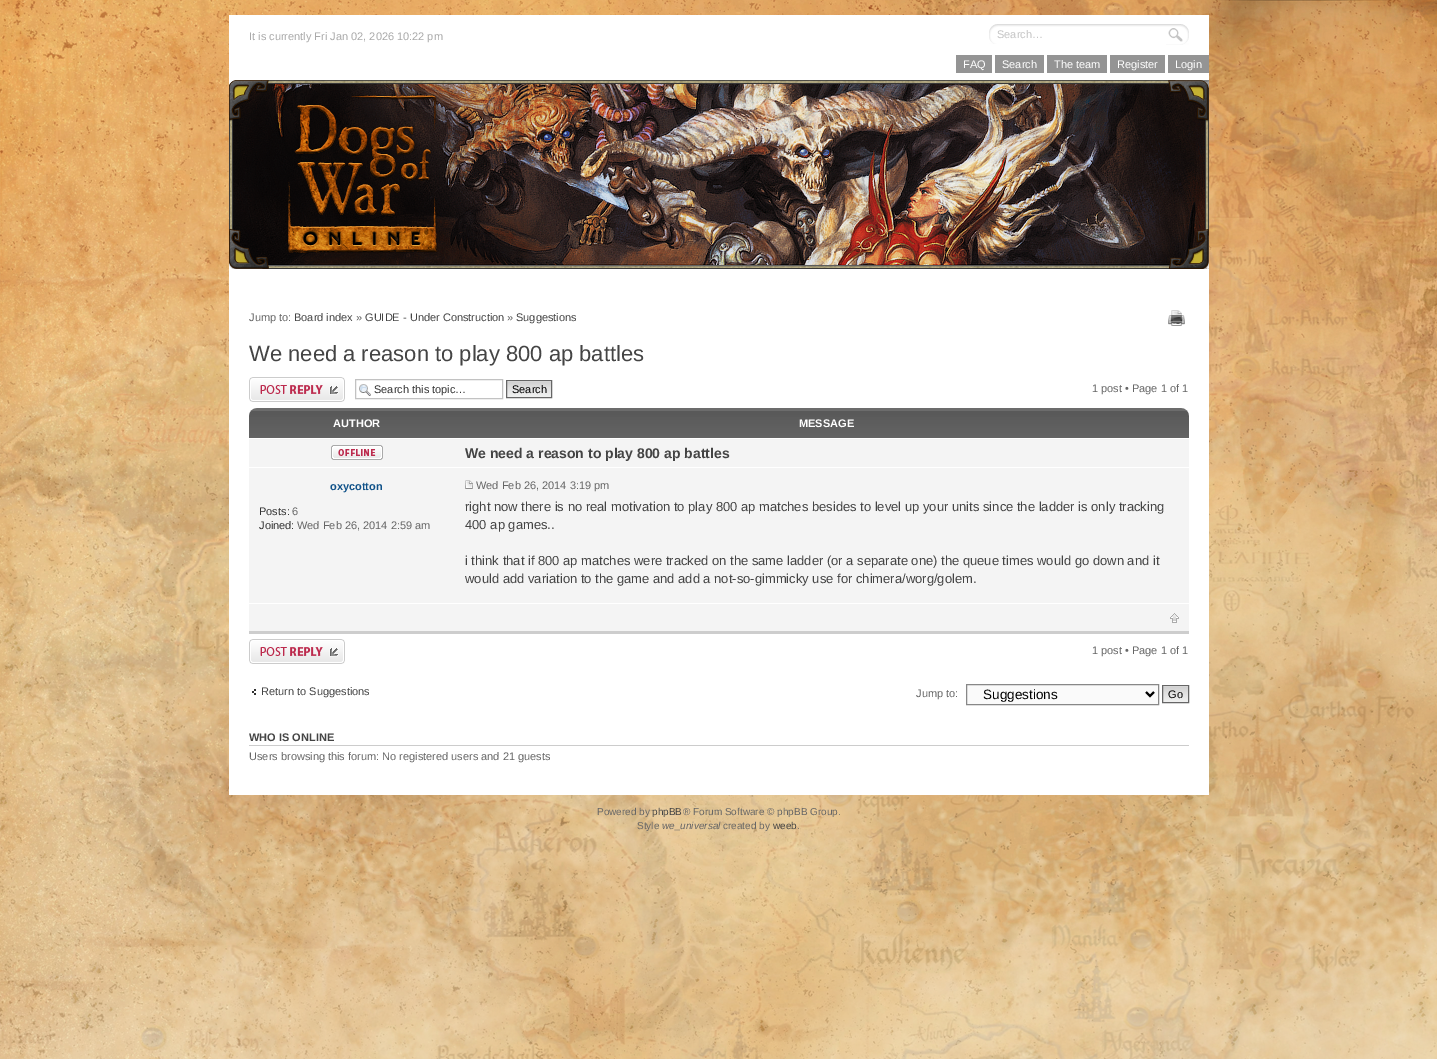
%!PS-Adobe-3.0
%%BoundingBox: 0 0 1437 1059
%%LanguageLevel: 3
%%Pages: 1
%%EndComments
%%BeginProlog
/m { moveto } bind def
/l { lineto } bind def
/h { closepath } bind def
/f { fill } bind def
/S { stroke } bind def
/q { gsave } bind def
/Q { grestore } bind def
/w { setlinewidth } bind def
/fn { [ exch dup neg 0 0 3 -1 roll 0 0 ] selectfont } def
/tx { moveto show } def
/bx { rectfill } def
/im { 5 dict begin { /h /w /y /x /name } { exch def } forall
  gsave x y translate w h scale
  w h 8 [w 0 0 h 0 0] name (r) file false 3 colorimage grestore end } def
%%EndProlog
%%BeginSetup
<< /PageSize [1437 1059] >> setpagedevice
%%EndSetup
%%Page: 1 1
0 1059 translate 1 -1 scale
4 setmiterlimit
1 setgray
0 0 1437 1059 bx
(image0.raw) 0 0 1437 1059 im
229 15 980 780 bx
/LiberationSans-Regular 11 fn
0.667 setgray
(It is currently Fri Jan 02, 2026 10:22 pm) 249 40 tx
(image1.raw) 989 24 177 20 im
0.773 setgray
(Search…) 997 38 tx
(image2.raw) 1166 24 23 21 im
(image3.raw) 229 80 980 189 im
0.58 setgray
956 55 36 18 bx
1 setgray
(FAQ) 963 68 tx
0.58 setgray
995 55 49 18 bx
1 setgray
(Search) 1002 68 tx
0.58 setgray
1047 55 60 18 bx
1 setgray
(The team) 1054 68 tx
0.58 setgray
1110 55 55 18 bx
1 setgray
(Register) 1117 68 tx
0.58 setgray
1168 55 41 18 bx
1 setgray
(Login) 1175 68 tx
0.4 setgray
(Jump to:) 249 321 tx
0.267 setgray
(Board index) 294 321 tx
0.4 setgray
(») 356 321 tx
0.267 setgray
(GUIDE - Under Construction) 365 321 tx
0.4 setgray
(») 507 321 tx
0.267 setgray
(Suggestions) 516 321 tx
(image4.raw) 1168 310 17 16 im
/LiberationSans-Regular 22 fn
(We need a reason to play 800 ap battles) 249 361 tx
(image5.raw) 249 377 96 25 im
(image6.raw) 359 384 12 12 im
0.761 setgray
355.5 379.5 147 19 rectstroke
/LiberationSans-Regular 11 fn
0.2 setgray
(Search this topic…) 374 393 tx
(image7.raw) 507 381 44 16 im
0.4 setgray
506.5 380.5 45 17 rectstroke
0 setgray
(Search) 512 393 tx
0.4 setgray
(1 post • Page 1 of 1) 1092 392 tx
(image8.raw) 249 408 940 30 im
/LiberationSans-Bold 11 fn
1 setgray
(AUTHOR) 333 427 tx
(MESSAGE) 799 427 tx
0.957 setgray
249 439 940 192 bx
0.804 setgray
249 631 940 3 bx
1 setgray
249 467 940 1 bx
(image9.raw) 331 445 52 15 im
0.063 0.322 0.537 setrgbcolor
(oxycotton) 330 490 tx
/LiberationSans-Regular 11 fn
0.2 setgray
(Posts:) 259 515 tx
0.4 setgray
(6) 292 515 tx
0.2 setgray
(Joined:) 259 529 tx
0.4 setgray
(Wed Feb 26, 2014 2:59 am) 297 529 tx
/LiberationSans-Bold 14 fn
0.267 setgray
(We need a reason to play 800 ap battles) 465 458 tx
(image10.raw) 465 480 8 9 im
/LiberationSans-Regular 11 fn
0.4 setgray
(Wed Feb 26, 2014 3:19 pm) 476 489 tx
/LiberationSans-Regular 13 fn
0.267 setgray
(right now there is no real motivation to play 800 ap matches besides to level up your units since the ladder is only tracking) 465 511 tx
(400 ap games..) 465 529 tx
(i think that if 800 ap matches were tracked on the same ladder \(or a separate one\) the queue times would go down and it) 465 565 tx
(would add variation to the game and add a not-so-gimmicky use for chimera/worg/golem.) 465 583 tx
1 setgray
249 603 940 1 bx
(image11.raw) 1170 613 9 10 im
(image5.raw) 249 639 96 25 im
/LiberationSans-Regular 11 fn
0.4 setgray
(1 post • Page 1 of 1) 1092 654 tx
(image12.raw) 252 689 4 6 im
0.267 setgray
(Return to Suggestions) 261 695 tx
0.4 setgray
(Jump to:) 916 697 tx
0.98 setgray
966.5 684.5 m 1158.5 684.5 l 1158.5 704.5 l 966.5 704.5 l h q f Q
0.533 setgray
S
0 setgray
2 w
1146 692 m 1150 696 l 1154 692 l S
/LiberationSans-Regular 13.5 fn
(Suggestions) 983 699 tx
(image13.raw) 1163 686 25 16 im
0.4 setgray
1 w
1162.5 685.5 26 17 rectstroke
/LiberationSans-Regular 11 fn
0 setgray
(Go) 1168 698 tx
0.8 setgray
249 745 940 1 bx
/LiberationSans-Bold 11 fn
0.267 setgray
(WHO IS ONLINE) 249 741 tx
/LiberationSans-Regular 11 fn
0.4 setgray
(Users browsing this forum: No registered users and 21 guests) 249 760 tx
/LiberationSans-Regular 10 fn
(Powered by) 597 815 tx
0.267 setgray
(phpBB) 652 815 tx
0.4 setgray
(® Forum Software © phpBB Group.) 683 815 tx
(Style) 637 829 tx
/LiberationSans-Italic 10 fn
(we_universal) 662 829 tx
/LiberationSans-Regular 10 fn
(created by) 723 829 tx
0.267 setgray
(weeb) 773 829 tx
0.4 setgray
(.) 797 829 tx
showpage
%%EOF
